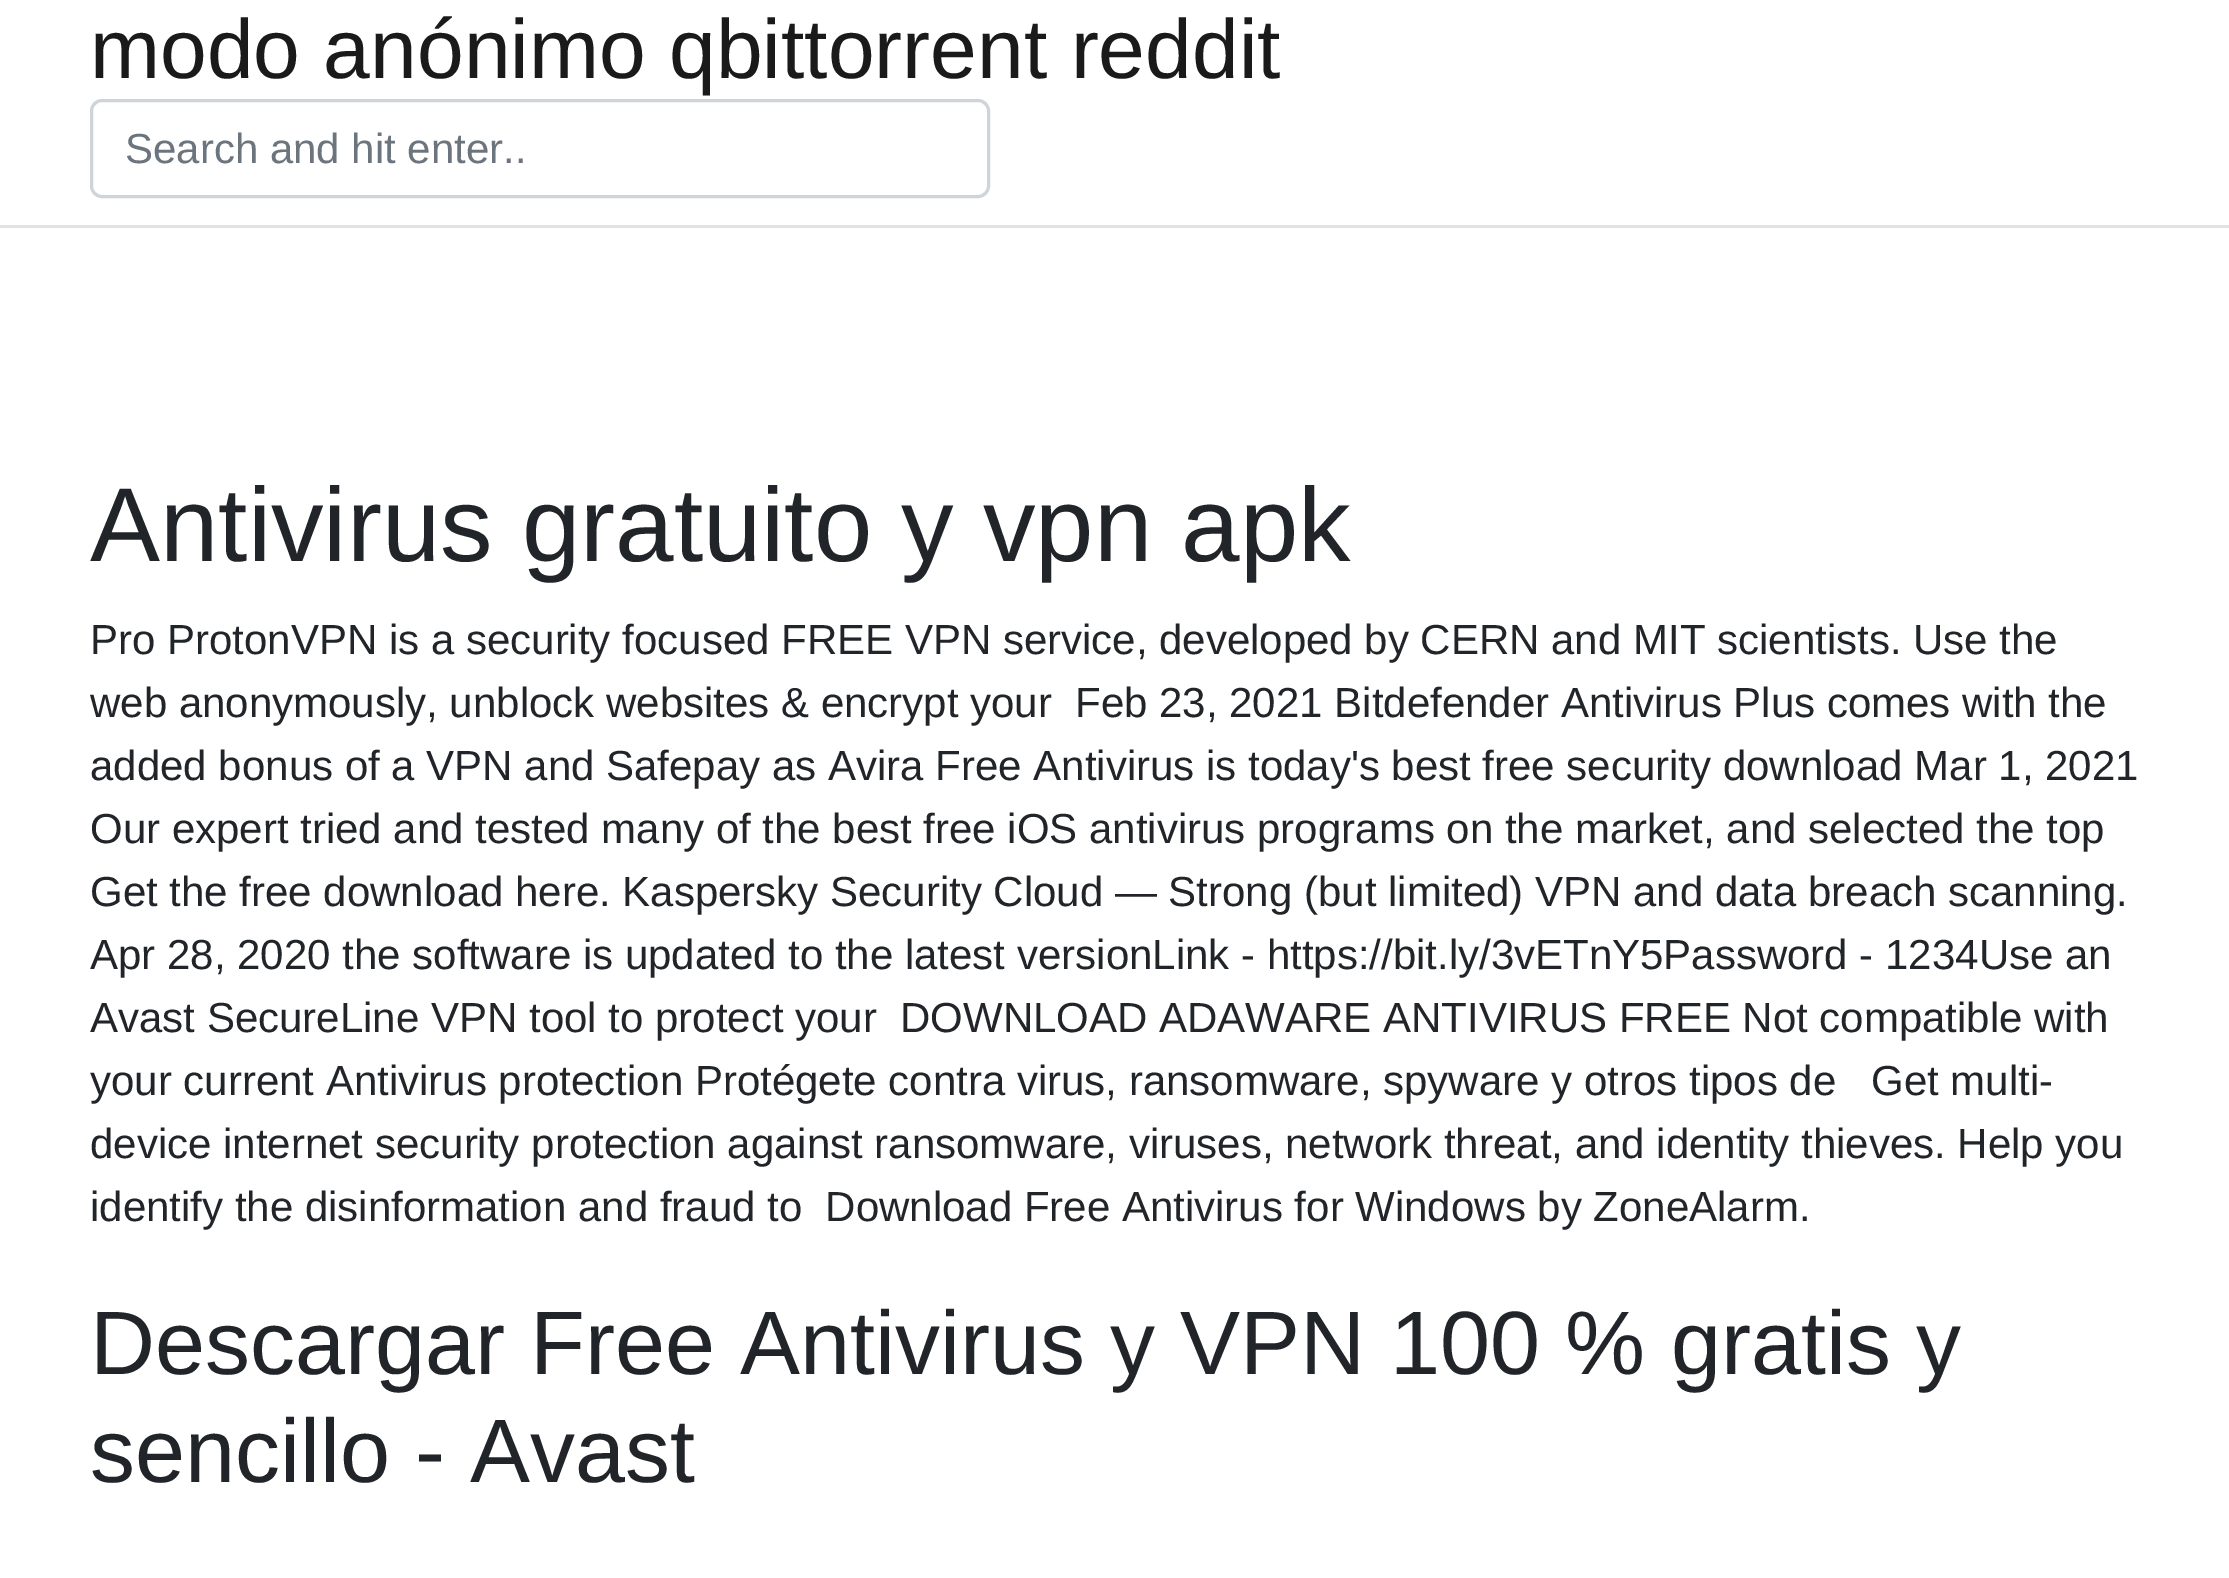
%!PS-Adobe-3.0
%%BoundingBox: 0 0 2229 1578
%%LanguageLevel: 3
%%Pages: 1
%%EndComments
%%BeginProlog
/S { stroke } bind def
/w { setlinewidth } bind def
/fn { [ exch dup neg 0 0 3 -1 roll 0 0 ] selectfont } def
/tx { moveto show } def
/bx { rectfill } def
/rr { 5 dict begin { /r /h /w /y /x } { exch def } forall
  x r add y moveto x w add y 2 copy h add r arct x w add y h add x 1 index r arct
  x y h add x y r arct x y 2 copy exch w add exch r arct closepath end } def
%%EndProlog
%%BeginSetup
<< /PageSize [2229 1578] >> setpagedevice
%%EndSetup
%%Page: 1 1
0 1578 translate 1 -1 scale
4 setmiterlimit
1 setgray
0 0 2229 1578 bx
0.882 0.886 0.89 setrgbcolor
0 225 2229 3 bx
/LiberationSans-Regular 84 fn
0.102 setgray
(modo anónimo qbittorrent reddit) 90 78 tx
0.808 0.831 0.855 setrgbcolor
3 w
91.5 100.5 897 96 10.5 rr S
/LiberationSans-Regular 42 fn
0.424 0.459 0.49 setrgbcolor
(Search and hit enter..) 125 163 tx
/LiberationSans-Regular 105 fn
0.129 0.145 0.161 setrgbcolor
(Antivirus gratuito y vpn apk) 90 561 tx
/LiberationSans-Regular 42 fn
(Pro ProtonVPN is a security focused FREE VPN service, developed by CERN and MIT scientists. Use the) 90 654 tx
(web anonymously, unblock websites & encrypt your  Feb 23, 2021 Bitdefender Antivirus Plus comes with the) 90 717 tx
(added bonus of a VPN and Safepay as Avira Free Antivirus is today's best free security download Mar 1, 2021) 90 780 tx
(Our expert tried and tested many of the best free iOS antivirus programs on the market, and selected the top) 90 843 tx
(Get the free download here. Kaspersky Security Cloud — Strong \(but limited\) VPN and data breach scanning.) 90 906 tx
(Apr 28, 2020 the software is updated to the latest versionLink - https://bit.ly/3vETnY5Password - 1234Use an) 90 969 tx
(Avast SecureLine VPN tool to protect your  DOWNLOAD ADAWARE ANTIVIRUS FREE Not compatible with) 90 1032 tx
(your current Antivirus protection Protégete contra virus, ransomware, spyware y otros tipos de   Get multi-) 90 1095 tx
(device internet security protection against ransomware, viruses, network threat, and identity thieves. Help you) 90 1158 tx
(identify the disinformation and fraud to  Download Free Antivirus for Windows by ZoneAlarm.) 90 1221 tx
/LiberationSans-Regular 90 fn
(Descargar Free Antivirus y VPN 100 % gratis y) 90 1374 tx
(sencillo - Avast) 90 1482 tx
showpage
%%EOF
